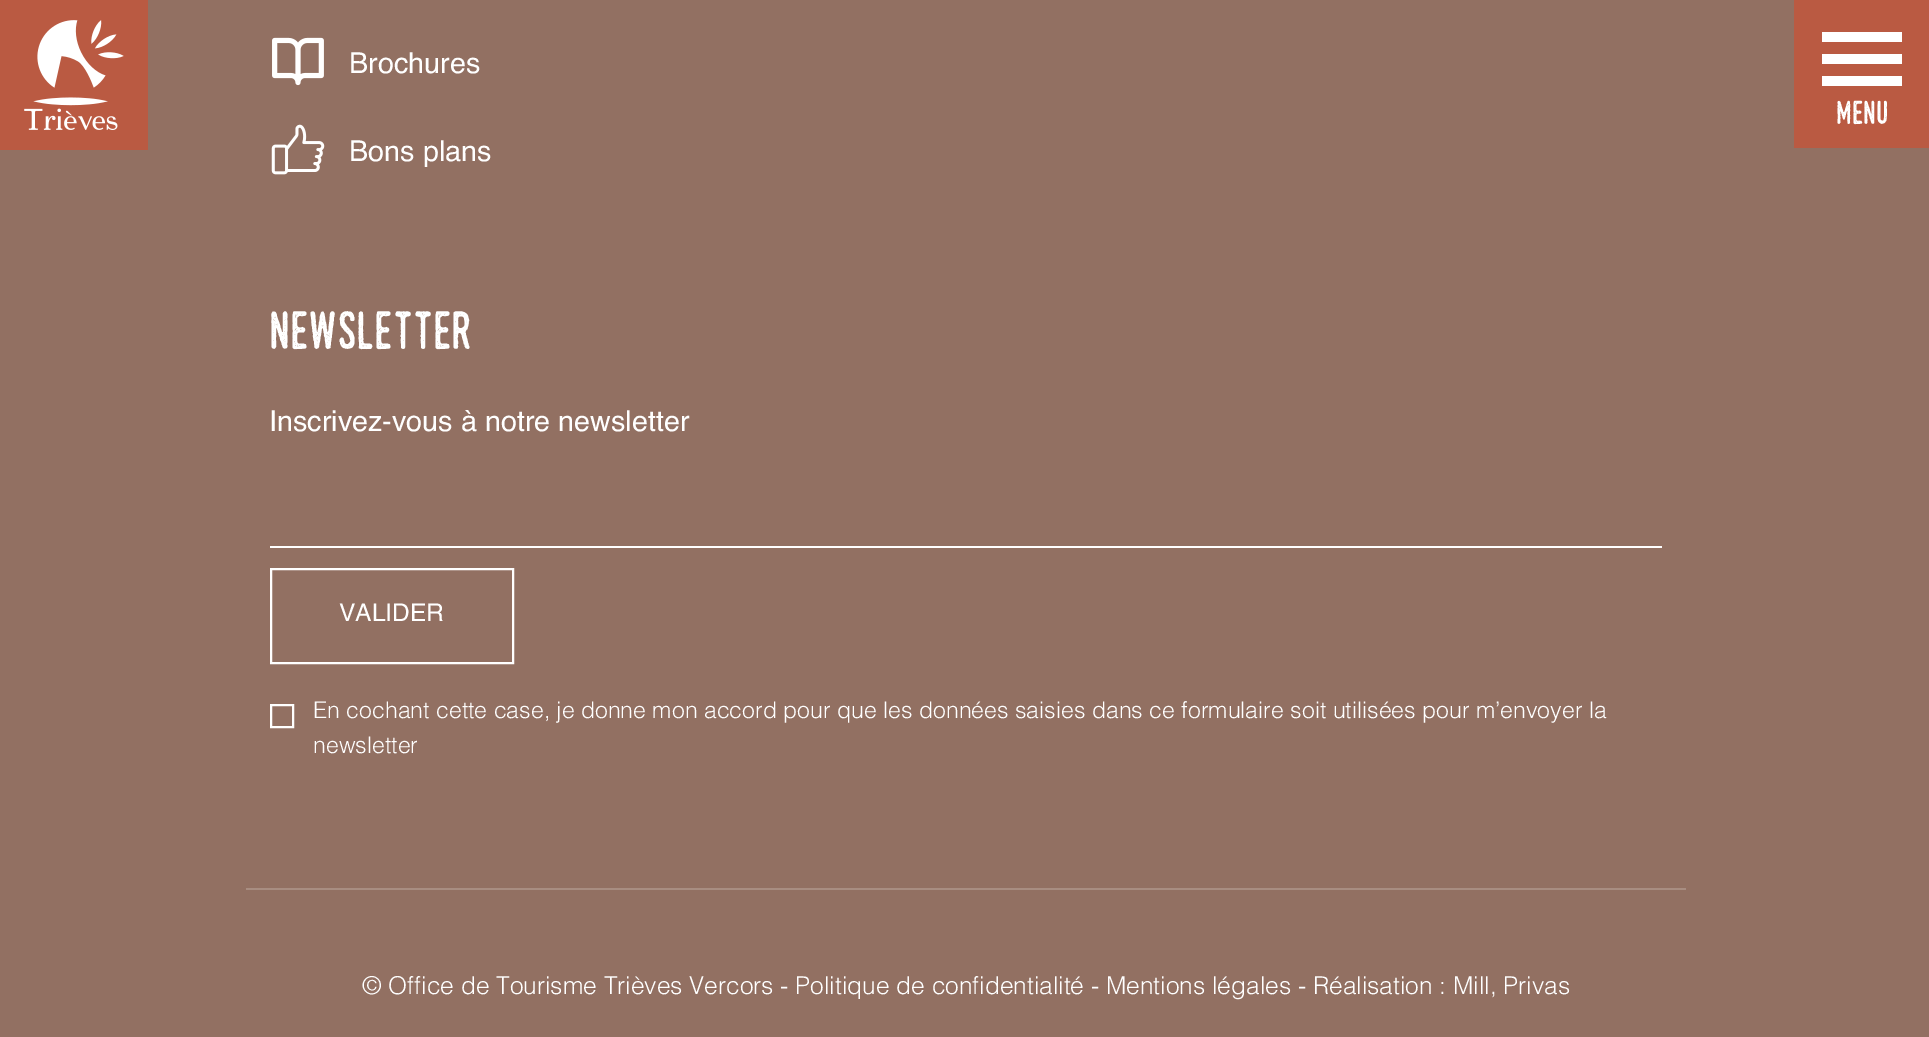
%!PS-Adobe-3.0
%%BoundingBox: 0 0 1929 1037
%%LanguageLevel: 3
%%Pages: 1
%%EndComments
%%BeginProlog
/w { setlinewidth } bind def
/fn { [ exch dup neg 0 0 3 -1 roll 0 0 ] selectfont } def
/tx { moveto show } def
/bx { rectfill } def
/im { 5 dict begin { /h /w /y /x /name } { exch def } forall
  gsave x y translate w h scale
  w h 8 [w 0 0 h 0 0] name (r) file false 3 colorimage grestore end } def
%%EndProlog
%%BeginSetup
<< /PageSize [1929 1037] >> setpagedevice
%%EndSetup
%%Page: 1 1
0 1037 translate 1 -1 scale
4 setmiterlimit
0.573 0.439 0.384 setrgbcolor
0 0 1929 1037 bx
(image0.raw) 272 37 52 49 im
/Helvetica-Regular 28.75 fn
1 setgray
(Brochures) 349 73 tx
(image1.raw) 271 124 54 51 im
(Bons plans) 349 161 tx
/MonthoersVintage-Regular 52 fn
(Newsletter) 269 349 tx
/Helvetica-Regular 28.75 fn
(Inscrivez-vous à notre newsletter) 269 431 tx
270 546 1392 2 bx
2 w
271 569 242 94 rectstroke
/Helvetica-Regular 24.5 fn
(VALIDER) 339 621 tx
271 705 22 22 rectstroke
/Helvetica-Light 23.05 fn
(En cochant cette case, je donne mon accord pour que les données saisies dans ce formulaire soit utilisées pour m’envoyer la) 313 718 tx
(newsletter) 313 753 tx
0.659 0.553 0.506 setrgbcolor
246 888 1440 2 bx
/Helvetica-Light 24.5 fn
1 setgray
(© Office de Tourisme Trièves Vercors - Politique de confidentialité - Mentions légales - Réalisation : Mill, Privas) 362 994 tx
0.729 0.353 0.259 setrgbcolor
0 0 148 150 bx
(image2.raw) 24 20 100 110 im
1794 0 135 148 bx
1 setgray
1822 54 80 10 bx
1822 32 80 10 bx
1822 76 80 10 bx
/MonthoersVintage-Regular 32 fn
(menu) 1836 124 tx
showpage
%%EOF
